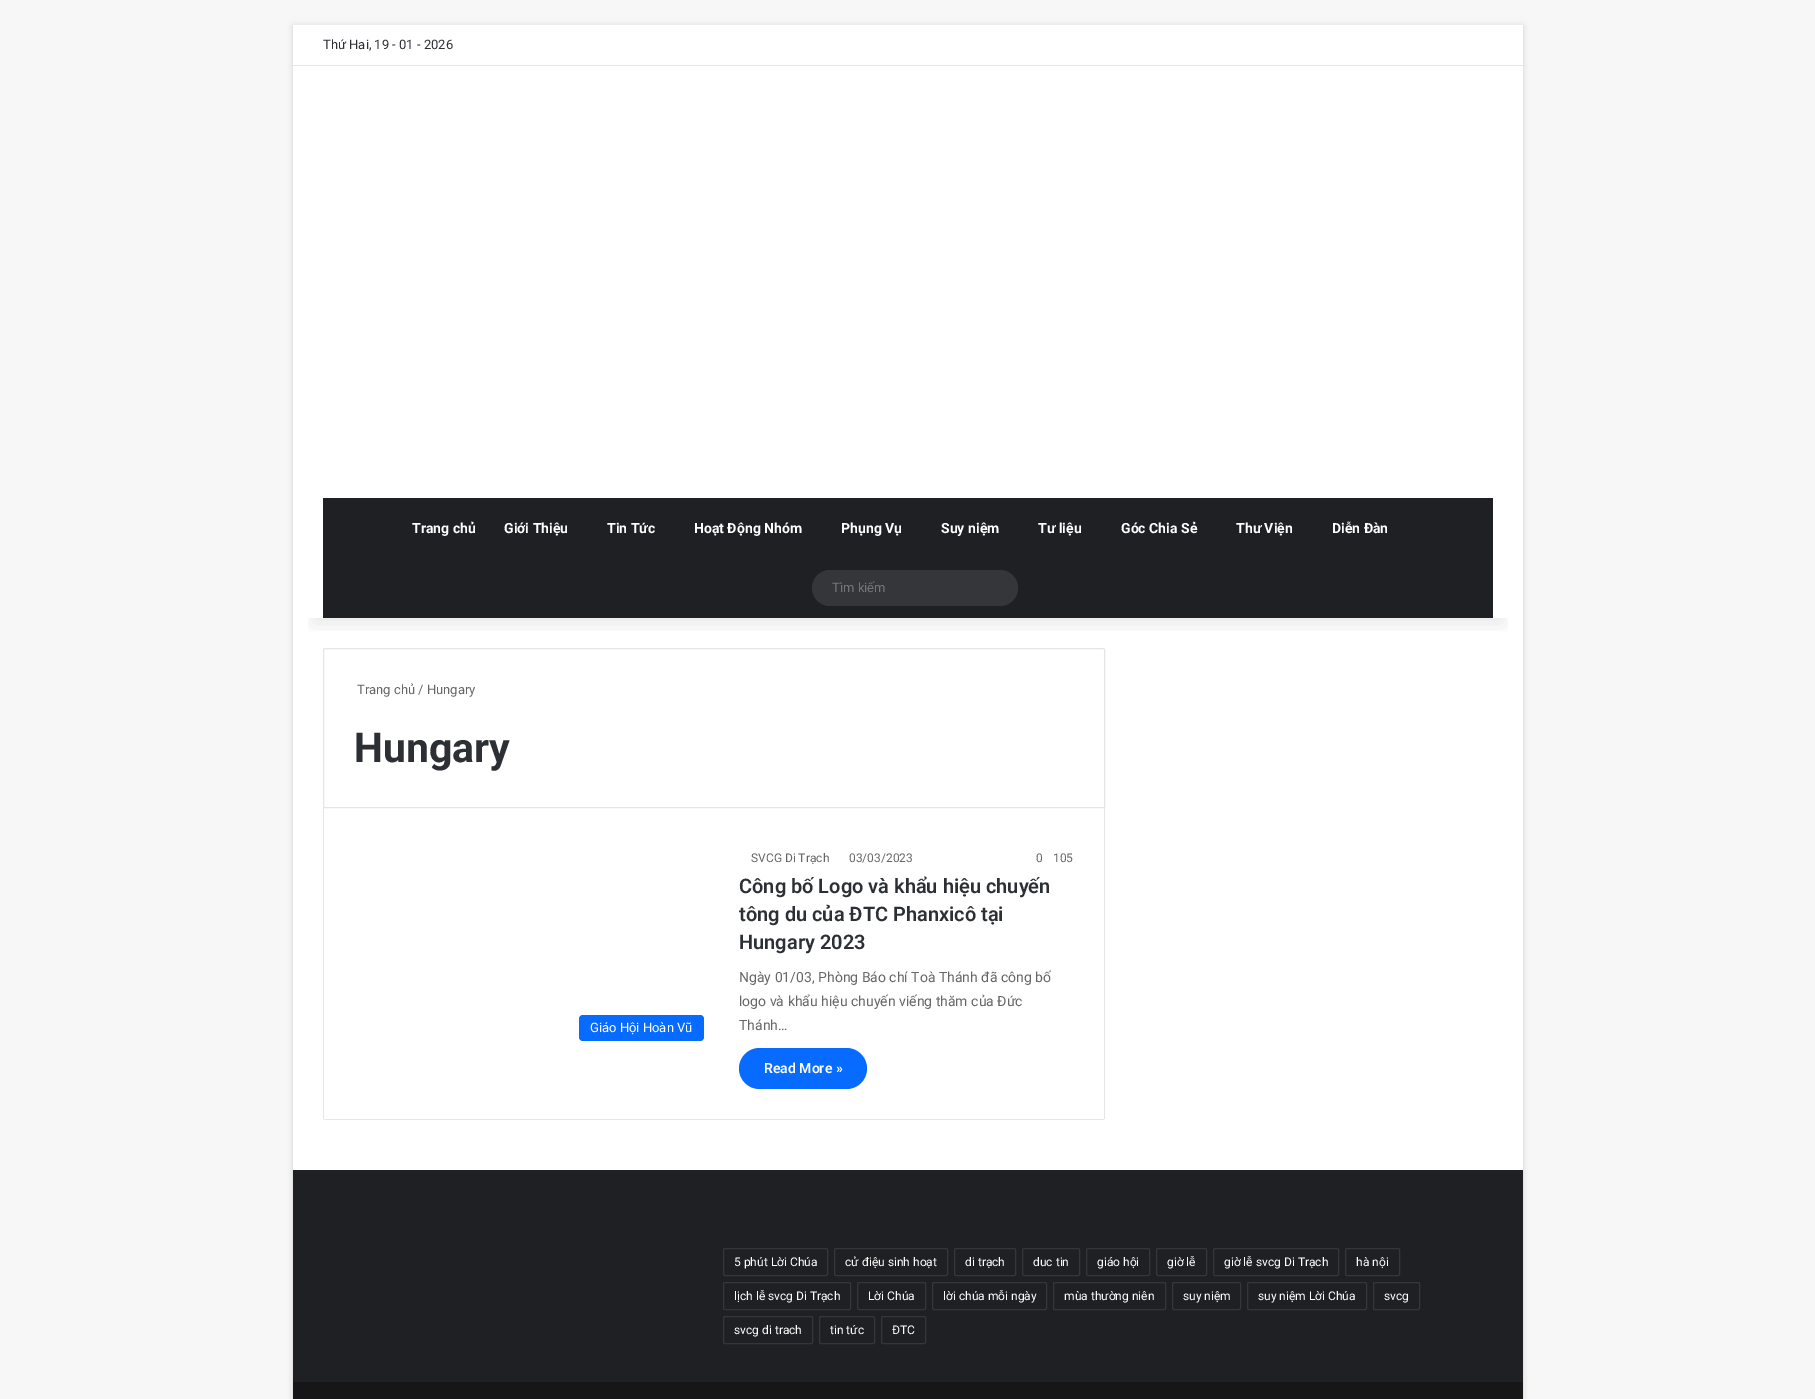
%!PS-Adobe-3.0
%%BoundingBox: 0 0 1815 1399
%%LanguageLevel: 3
%%Pages: 1
%%EndComments
%%BeginProlog
/m { moveto } bind def
/l { lineto } bind def
/c { curveto } bind def
/h { closepath } bind def
/f { fill } bind def
/S { stroke } bind def
/q { gsave } bind def
/Q { grestore } bind def
/fn { [ exch dup neg 0 0 3 -1 roll 0 0 ] selectfont } def
/tx { moveto show } def
/bx { rectfill } def
/al { dup .setfillconstantalpha .setstrokeconstantalpha } def
/rr { 5 dict begin { /r /h /w /y /x } { exch def } forall
  x r add y moveto x w add y 2 copy h add r arct x w add y h add x 1 index r arct
  x y h add x y r arct x y 2 copy exch w add exch r arct closepath end } def
/sh { 12 dict begin { /a /b /q /h /w /y /x } { exch def } forall gsave /was 0 def
  9 -2 -9 { dup b mul 4 div /e exch def 1 sub .425 mul 2.718 exch exp 1 add a .99 .min exch div /now exch def
    1 1 now sub 1 was sub div sub al /was now def
    w h .min e 2 mul add 0 gt { x e sub y e sub w e 2 mul add h e 2 mul add
      q e add b .6 mul add w h .min 2 div e add .min 0 .max rr fill } if } for grestore end } def
%%EndProlog
%%BeginSetup
<< /PageSize [1815 1399] /PageUsesTransparency true >> setpagedevice
%%EndSetup
%%Page: 1 1
0 .pushpdf14devicefilter
0 1399 translate 1 -1 scale
4 setmiterlimit
0.969 setgray
0 0 1815 1399 bx
0.671 setgray
293 26 1230 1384 0 3.5 0.5 sh
1 setgray
293 25 1230 1145 bx
0.898 setgray
325 648.5 m 1103 648.5 l 1104 648.5 1104.5 649 1104.5 650 c 1104.5 807.5 l 323.5 807.5 l 323.5 650 l 323.5 649 324 648.5 325 648.5 c h S
q
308 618 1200 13 rectclip
0 setgray
313 70 1190 553 0 10 0.1 sh
Q
0.902 setgray
293 65 1230 1 bx
/Roboto-Regular 13 fn
0.173 0.184 0.204 setrgbcolor
(Thứ Hai, 19 - 01 - 2026) 323 49 tx
0.122 0.125 0.141 setrgbcolor
323 498 1170 120 bx
/Roboto-Bold 14 fn
1 setgray
(Trang chủ) 412 533 tx
(Giới Thiệu) 504 533 tx
(Tin Tức) 607 533 tx
(Hoạt Động Nhóm) 694 533 tx
(Phụng Vụ) 841 533 tx
(Suy niệm) 941 533 tx
(Tư liệu) 1038 533 tx
(Góc Chia Sẻ) 1121 533 tx
(Thư Viện) 1236 533 tx
(Diễn Đàn) 1332 533 tx
0.208 0.212 0.227 setrgbcolor
812 570 206 36 18 rr f
/Roboto-Regular 13 fn
0.459 setgray
(Tìm kiếm) 832 592 tx
0.4 setgray
(Trang chủ / Hungary) 357 694 tx
/Roboto-Bold 41 fn
0.173 0.184 0.204 setrgbcolor
(Hungary) 354 762 tx
0.902 setgray
1104 808 1 311 bx
324 1119 780 1 bx
323 808 1 311 bx
0.031 0.42 1 setrgbcolor
579 1015 125 26 4 rr f
/Roboto-Regular 13 fn
1 setgray
(Giáo Hội Hoàn Vũ) 590 1032 tx
/Roboto-Regular 12 fn
0.4 setgray
(SVCG Di Trạch) 751 862 tx
(03/03/2023) 849 862 tx
(0) 1036 862 tx
(105) 1053 862 tx
/Roboto-SemiBold 20 fn
0.173 0.184 0.204 setrgbcolor
(Công bố Logo và khẩu hiệu chuyến) 739 893 tx
(tông du của ĐTC Phanxicô tại) 739 921 tx
(Hungary 2023) 739 949 tx
/Roboto-Regular 14 fn
0.4 setgray
(Ngày 01/03, Phòng Báo chí Toà Thánh đã công bố) 739 982 tx
(logo và khẩu hiệu chuyến viếng thăm của Đức) 739 1006 tx
(Thánh…) 739 1030 tx
0.031 0.42 1 setrgbcolor
739 1048 128 41 20.5 rr f
/Roboto-SemiBold 14 fn
1 setgray
(Read More ») 764 1073 tx
0.122 0.125 0.141 setrgbcolor
293 1170 1230 212 bx
0.208 0.212 0.227 setrgbcolor
723.5 1248.5 104 27 1.5 rr S
/Roboto-Regular 12 fn
1 setgray
(5 phút Lời Chúa) 734 1266 tx
0.208 0.212 0.227 setrgbcolor
834.5 1248.5 113 27 1.5 rr S
1 setgray
(cử điệu sinh hoạt) 845 1266 tx
0.208 0.212 0.227 setrgbcolor
954.5 1248.5 61 27 1.5 rr S
1 setgray
(di trạch) 965 1266 tx
0.208 0.212 0.227 setrgbcolor
1022.5 1248.5 57 27 1.5 rr S
1 setgray
(duc tin) 1033 1266 tx
0.208 0.212 0.227 setrgbcolor
1086.5 1248.5 63 27 1.5 rr S
1 setgray
(giáo hội) 1097 1266 tx
0.208 0.212 0.227 setrgbcolor
1156.5 1248.5 50 27 1.5 rr S
1 setgray
(giờ lễ) 1167 1266 tx
0.208 0.212 0.227 setrgbcolor
1213.5 1248.5 125 27 1.5 rr S
1 setgray
(giờ lễ svcg Di Trạch) 1224 1266 tx
0.208 0.212 0.227 setrgbcolor
1345.5 1248.5 54 27 1.5 rr S
1 setgray
(hà nội) 1356 1266 tx
0.208 0.212 0.227 setrgbcolor
723.5 1282.5 127 27 1.5 rr S
1 setgray
(lịch lễ svcg Di Trạch) 734 1300 tx
0.208 0.212 0.227 setrgbcolor
857.5 1282.5 68 27 1.5 rr S
1 setgray
(Lời Chúa) 868 1300 tx
0.208 0.212 0.227 setrgbcolor
932.5 1282.5 114 27 1.5 rr S
1 setgray
(lời chúa mỗi ngày) 943 1300 tx
0.208 0.212 0.227 setrgbcolor
1053.5 1282.5 112 27 1.5 rr S
1 setgray
(mùa thường niên) 1064 1300 tx
0.208 0.212 0.227 setrgbcolor
1172.5 1282.5 68 27 1.5 rr S
1 setgray
(suy niệm) 1183 1300 tx
0.208 0.212 0.227 setrgbcolor
1247.5 1282.5 119 27 1.5 rr S
1 setgray
(suy niệm Lời Chúa) 1258 1300 tx
0.208 0.212 0.227 setrgbcolor
1373.5 1282.5 46 27 1.5 rr S
1 setgray
(svcg) 1384 1300 tx
0.208 0.212 0.227 setrgbcolor
723.5 1316.5 89 27 1.5 rr S
1 setgray
(svcg di trach) 734 1334 tx
0.208 0.212 0.227 setrgbcolor
819.5 1316.5 55 27 1.5 rr S
1 setgray
(tin tức) 830 1334 tx
0.208 0.212 0.227 setrgbcolor
881.5 1316.5 44 27 1.5 rr S
1 setgray
(ĐTC) 892 1334 tx
0.086 0.086 0.098 setrgbcolor
293 1382 1230 17 bx
.poppdf14devicefilter showpage
%%EOF
